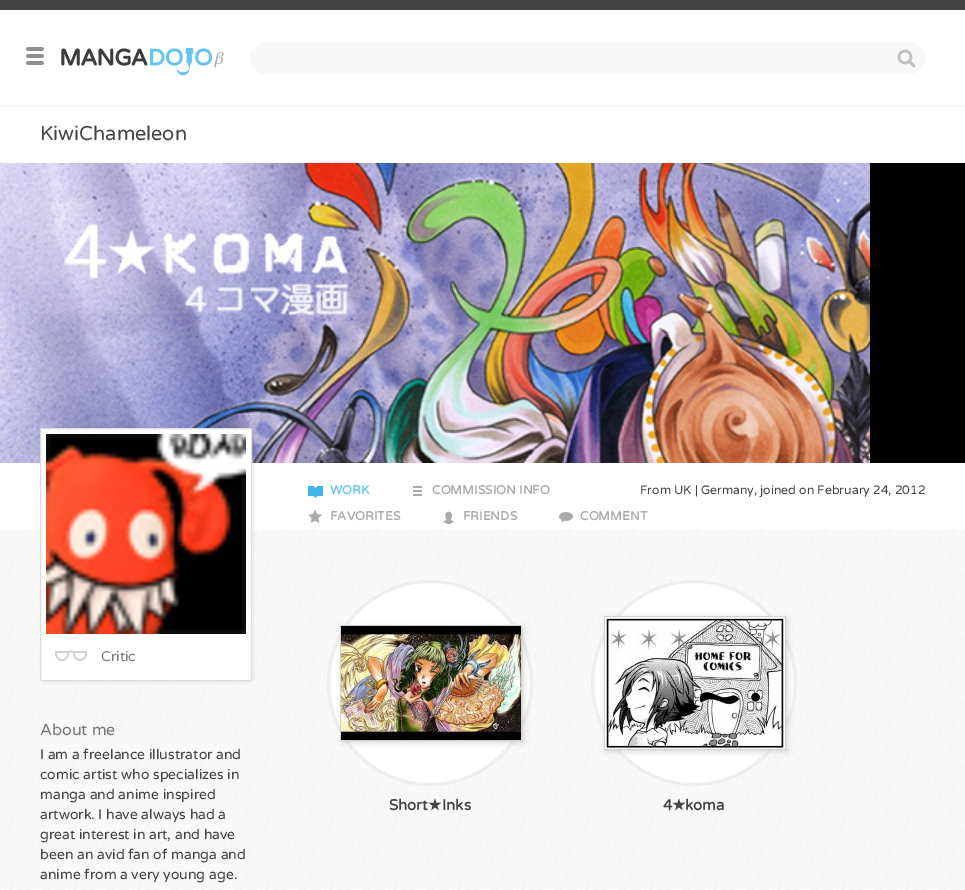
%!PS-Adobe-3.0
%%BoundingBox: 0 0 965 890
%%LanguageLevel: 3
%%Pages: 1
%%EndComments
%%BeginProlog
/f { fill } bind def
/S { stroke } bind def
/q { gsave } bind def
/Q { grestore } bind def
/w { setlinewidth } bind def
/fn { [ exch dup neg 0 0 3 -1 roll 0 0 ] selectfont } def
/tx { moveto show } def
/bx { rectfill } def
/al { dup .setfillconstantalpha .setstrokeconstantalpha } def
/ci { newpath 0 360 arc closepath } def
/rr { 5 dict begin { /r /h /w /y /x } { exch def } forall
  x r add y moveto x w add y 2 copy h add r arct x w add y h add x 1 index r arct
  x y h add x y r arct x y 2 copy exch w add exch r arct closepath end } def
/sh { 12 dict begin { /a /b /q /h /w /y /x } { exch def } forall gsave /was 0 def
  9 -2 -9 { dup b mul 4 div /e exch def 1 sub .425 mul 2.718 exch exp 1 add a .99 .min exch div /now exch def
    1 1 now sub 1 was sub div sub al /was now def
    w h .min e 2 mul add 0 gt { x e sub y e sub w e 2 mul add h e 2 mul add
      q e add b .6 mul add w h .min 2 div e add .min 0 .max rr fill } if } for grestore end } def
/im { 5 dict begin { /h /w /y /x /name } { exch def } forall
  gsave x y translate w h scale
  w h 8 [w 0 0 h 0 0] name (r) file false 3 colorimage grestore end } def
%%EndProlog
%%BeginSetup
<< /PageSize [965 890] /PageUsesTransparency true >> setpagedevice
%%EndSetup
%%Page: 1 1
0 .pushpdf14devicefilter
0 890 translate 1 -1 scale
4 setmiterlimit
1 setgray
0 0 965 890 bx
(image0.raw) 0 530 965 360 im
0.267 setgray
0 0 965 10 bx
0.933 setgray
0 106 965 1 bx
(image1.raw) 26 47 18 18 im
(image2.raw) 61 47 163 29 im
0.973 setgray
250 42 675 32 16 rr f
(image3.raw) 897 49 19 19 im
/VarelaRound-Regular 20 fn
0.267 setgray
(KiwiChameleon) 40 140 tx
0 setgray
870 163 95 300 bx
(image4.raw) 0 163 870 300 im
(image5.raw) 308 486 15 12 im
/VarelaRound-Bold 12.25 fn
0.38 0.784 0.957 setrgbcolor
(WORK) 330 494 tx
(image6.raw) 413 486 9 10 im
0.667 setgray
(COMMISSION INFO) 432 494 tx
/VarelaRound-Regular 12.25 fn
0.267 setgray
(From UK | Germany, joined on February 24, 2012) 640 494 tx
(image7.raw) 308 509 14 14 im
/VarelaRound-Bold 12.25 fn
0.667 setgray
(FAVORITES) 330 520 tx
(image8.raw) 443 511 11 13 im
(FRIENDS) 463 520 tx
(image9.raw) 559 512 14 11 im
(COMMENT) 580 520 tx
0.471 setgray
42 430 212 253 2 1.5 0.1 sh
1 setgray
40.5 428.5 211 252 1.5 rr q f Q
0.867 setgray
S
(image10.raw) 46 434 200 200 im
(image11.raw) 55 650 32 11 im
/VarelaRound-Regular 14 fn
0.467 setgray
(Critic) 101 661 tx
/VarelaRound-Regular 16 fn
(About me) 40 735 tx
/VarelaRound-Regular 14 fn
0.267 setgray
(I am a freelance illustrator and) 40 759 tx
(comic artist who specializes in) 40 779 tx
(manga and anime inspired) 40 799 tx
(artwork. I have always had a) 40 819 tx
(great interest in art, and have) 40 839 tx
(been an avid fan of manga and) 40 859 tx
(anime from a very young age.) 40 879 tx
1 setgray
430 683 101.5 ci q f Q
0.933 setgray
3 w
S
0.471 setgray
342 627 182 116 0 3 0.25 sh
0.824 setgray
1 w
340.5 625.5 181 115 rectstroke
(image12.raw) 341 626 180 114 im
/VarelaRound-Bold 15 fn
0.267 setgray
(Short) 389 810 tx
/DejaVuSans-Bold 15 fn
(★) 428 810 tx
/VarelaRound-Bold 15 fn
(Inks) 442 810 tx
1 setgray
694 683 101.5 ci q f Q
0.933 setgray
3 w
S
0.471 setgray
606 618 182 134 0 3 0.25 sh
0.824 setgray
1 w
604.5 616.5 181 133 rectstroke
(image13.raw) 605 617 180 132 im
0.267 setgray
(4) 663 810 tx
/DejaVuSans-Bold 15 fn
(★) 672 810 tx
/VarelaRound-Bold 15 fn
(koma) 685 810 tx
.poppdf14devicefilter showpage
%%EOF
